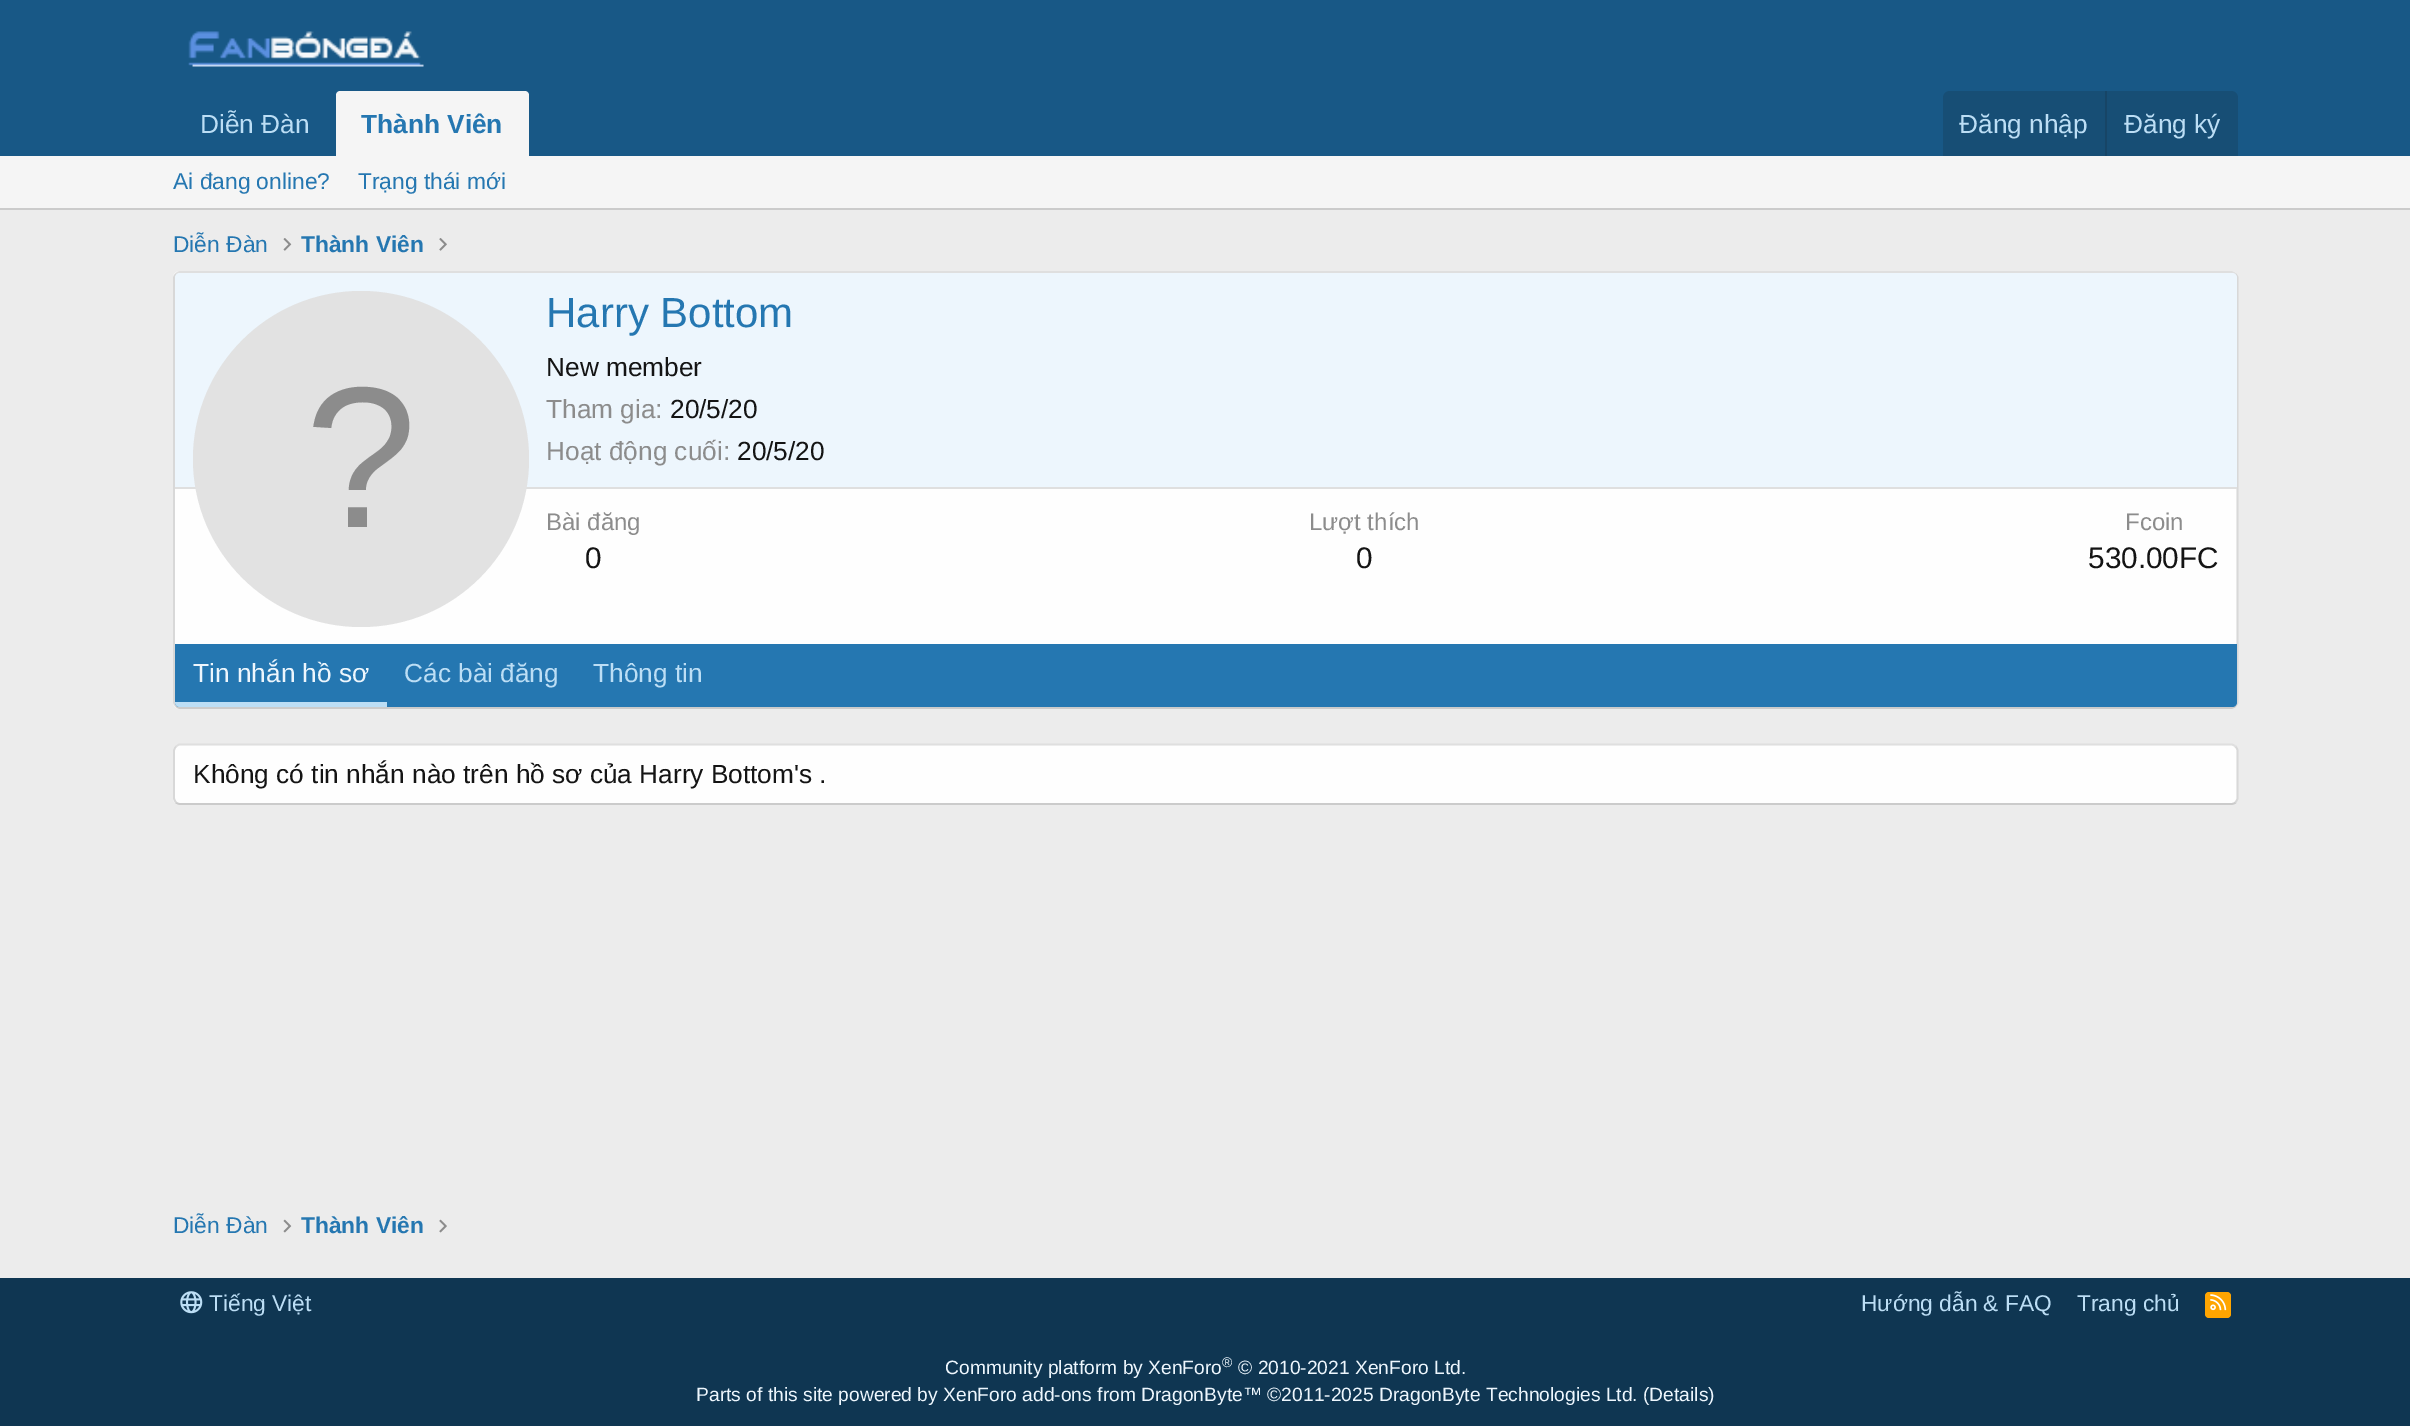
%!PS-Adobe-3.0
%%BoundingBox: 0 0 2410 1426
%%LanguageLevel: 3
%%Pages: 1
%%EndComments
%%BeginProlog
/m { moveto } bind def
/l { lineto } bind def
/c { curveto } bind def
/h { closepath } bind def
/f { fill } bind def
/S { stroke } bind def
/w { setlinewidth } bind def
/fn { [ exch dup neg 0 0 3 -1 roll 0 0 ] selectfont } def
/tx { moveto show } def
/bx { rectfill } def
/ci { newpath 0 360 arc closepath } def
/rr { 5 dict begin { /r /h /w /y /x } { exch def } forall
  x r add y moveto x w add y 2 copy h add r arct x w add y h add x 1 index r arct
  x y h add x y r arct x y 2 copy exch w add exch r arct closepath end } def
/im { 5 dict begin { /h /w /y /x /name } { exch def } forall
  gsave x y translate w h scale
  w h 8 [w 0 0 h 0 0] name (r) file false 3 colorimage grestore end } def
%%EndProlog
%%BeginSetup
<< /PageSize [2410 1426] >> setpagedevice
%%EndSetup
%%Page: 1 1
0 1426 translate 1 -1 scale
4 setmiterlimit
0.925 setgray
0 0 2410 1426 bx
0.094 0.345 0.525 setrgbcolor
0 0 2410 156 bx
(image0.raw) 188 31 236 36 im
/LiberationSans-Regular 26.25 fn
0.737 0.871 0.961 setrgbcolor
(Diễn Đàn) 200 133 tx
0.961 setgray
340 91 m 525 91 l 527 91 529 93 529 95 c 529 156 l 336 156 l 336 95 l 336 93 338 91 340 91 c h f
/LiberationSans-Bold 26.25 fn
0.145 0.467 0.694 setrgbcolor
(Thành Viên) 361 133 tx
0.09 0.306 0.459 setrgbcolor
1950 91 m 2231 91 l 2235 91 2238 94 2238 98 c 2238 156 l 1943 156 l 1943 98 l 1943 94 1946 91 1950 91 c h f
/LiberationSans-Regular 26.25 fn
0.737 0.871 0.961 setrgbcolor
(Đăng nhập) 1959 133 tx
0.09 0.271 0.4 setrgbcolor
2105 91 2 65 bx
0.737 0.871 0.961 setrgbcolor
(Đăng ký) 2124 133 tx
0.961 setgray
0 156 2410 52 bx
0.796 setgray
0 208 2410 2 bx
/LiberationSans-Regular 22.75 fn
0.145 0.467 0.694 setrgbcolor
(Ai đang online?) 173 189 tx
(Trạng thái mới) 358 189 tx
(Diễn Đàn) 173 252 tx
(image1.raw) 283 238 9 13 im
/LiberationSans-Bold 22.75 fn
(Thành Viên) 301 252 tx
(image2.raw) 439 238 8 13 im
0.996 setgray
173 271 2065 438 7 rr f
0.875 setgray
1.8 w
176 274 m 177 273 178.5 272 180 272 c 2231 272 l 2233 272 2234.5 273 2235.5 274 c S
0.847 setgray
2235.5 274 m 2236.5 275 2237.5 276.5 2237.5 278 c 2237.5 702 l 2237.5 703.5 2236.5 705 2235.5 706 c S
0.796 setgray
2235.5 706 m 2234.5 707 2233 708 2231 708 c 180 708 l 178.5 708 177 707 176 706 c S
0.847 setgray
176 706 m 175 705 174 703.5 174 702 c 174 278 l 174 276.5 175 275 176 274 c S
0.929 0.965 0.992 setrgbcolor
180 273 m 2232 273 l 2235 273 2237 275 2237 278 c 2237 488 l 175 488 l 175 278 l 175 275 177 273 180 273 c h f
0.875 setgray
175 487 2062 2 bx
0.886 setgray
361 459 168 ci f
/LiberationSans-Regular 201 fn
0.549 setgray
(?) 305 527 tx
/LiberationSans-Regular 42 fn
0.145 0.467 0.694 setrgbcolor
(Harry Bottom) 546 327 tx
/LiberationSans-Regular 26.25 fn
0.078 setgray
(New member) 546 376 tx
0.549 setgray
(Tham gia:) 546 418 tx
0.078 setgray
(20/5/20) 670 418 tx
0.549 setgray
(Hoạt động cuối:) 546 460 tx
0.078 setgray
(20/5/20) 737 460 tx
/LiberationSans-Regular 24 fn
0.549 setgray
(Bài đăng) 546 530 tx
/LiberationSans-Regular 29.75 fn
0.078 setgray
(0) 585 568 tx
/LiberationSans-Regular 24 fn
0.549 setgray
(Lượt thích) 1309 530 tx
/LiberationSans-Regular 29.75 fn
0.078 setgray
(0) 1356 568 tx
/LiberationSans-Regular 24 fn
0.549 setgray
(Fcoin) 2125 530 tx
/LiberationSans-Regular 29.75 fn
0.078 setgray
(530.00FC) 2088 568 tx
0.145 0.467 0.694 setrgbcolor
175 644 m 2237 644 l 2237 702 l 2237 705 2235 707 2232 707 c 180 707 l 177 707 175 705 175 702 c h f
0.737 0.871 0.961 setrgbcolor
175 702 m 387 702 l 387 707 l 180 707 l 177 707 175 705 175 702 c h f
/LiberationSans-Regular 26.25 fn
0.929 0.965 0.992 setrgbcolor
(Tin nhắn hồ sơ) 193 682 tx
0.737 0.871 0.961 setrgbcolor
(Các bài đăng) 404 682 tx
(Thông tin) 593 682 tx
0.996 setgray
173 744 2065 61 7 rr f
0.875 setgray
176 746.5 m 177 745.5 178.5 744.5 180 744.5 c 2231 744.5 l 2233 744.5 2234.5 745.5 2235.5 746.5 c S
0.847 setgray
2235.5 746.5 m 2236.5 747.5 2237.5 749 2237.5 751 c 2237.5 798 l 2237.5 799.5 2236.5 801 2235.5 802.5 c S
0.796 setgray
2235.5 802.5 m 2234.5 803.5 2233 804 2231 804 c 180 804 l 178.5 804 177 803.5 176 802.5 c S
0.847 setgray
176 802.5 m 175 801 174 799.5 174 798 c 174 751 l 174 749 175 747.5 176 746.5 c S
0.078 setgray
(Không có tin nhắn nào trên hồ sơ của Harry Bottom's .) 193 783 tx
/LiberationSans-Regular 22.75 fn
0.145 0.467 0.694 setrgbcolor
(Diễn Đàn) 173 1233 tx
(image3.raw) 283 1219 9 14 im
/LiberationSans-Bold 22.75 fn
(Thành Viên) 301 1233 tx
(image4.raw) 439 1219 8 14 im
0.059 0.212 0.322 setrgbcolor
0 1278 2410 148 bx
(image5.raw) 180 1291 23 23 im
/LiberationSans-Regular 22.75 fn
0.737 0.871 0.961 setrgbcolor
(Tiếng Việt) 209 1311 tx
(Hướng dẫn & FAQ) 1861 1311 tx
(Trang chủ) 2077 1311 tx
1 0.647 0 setrgbcolor
2205 1292 26 26 4 rr f
(image6.raw) 2210 1294 17 17 im
/LiberationSans-Regular 19.25 fn
0.929 0.965 0.992 setrgbcolor
(Community platform by XenForo) 945 1374 tx
/LiberationSans-Regular 14 fn
(®) 1222 1367 tx
/LiberationSans-Regular 19.25 fn
(© 2010-2021 XenForo Ltd.) 1238 1374 tx
(Parts of this site powered by XenForo add-ons from DragonByte™ ©2011-2025 DragonByte Technologies Ltd. \(Details\)) 696 1401 tx
showpage
%%EOF
